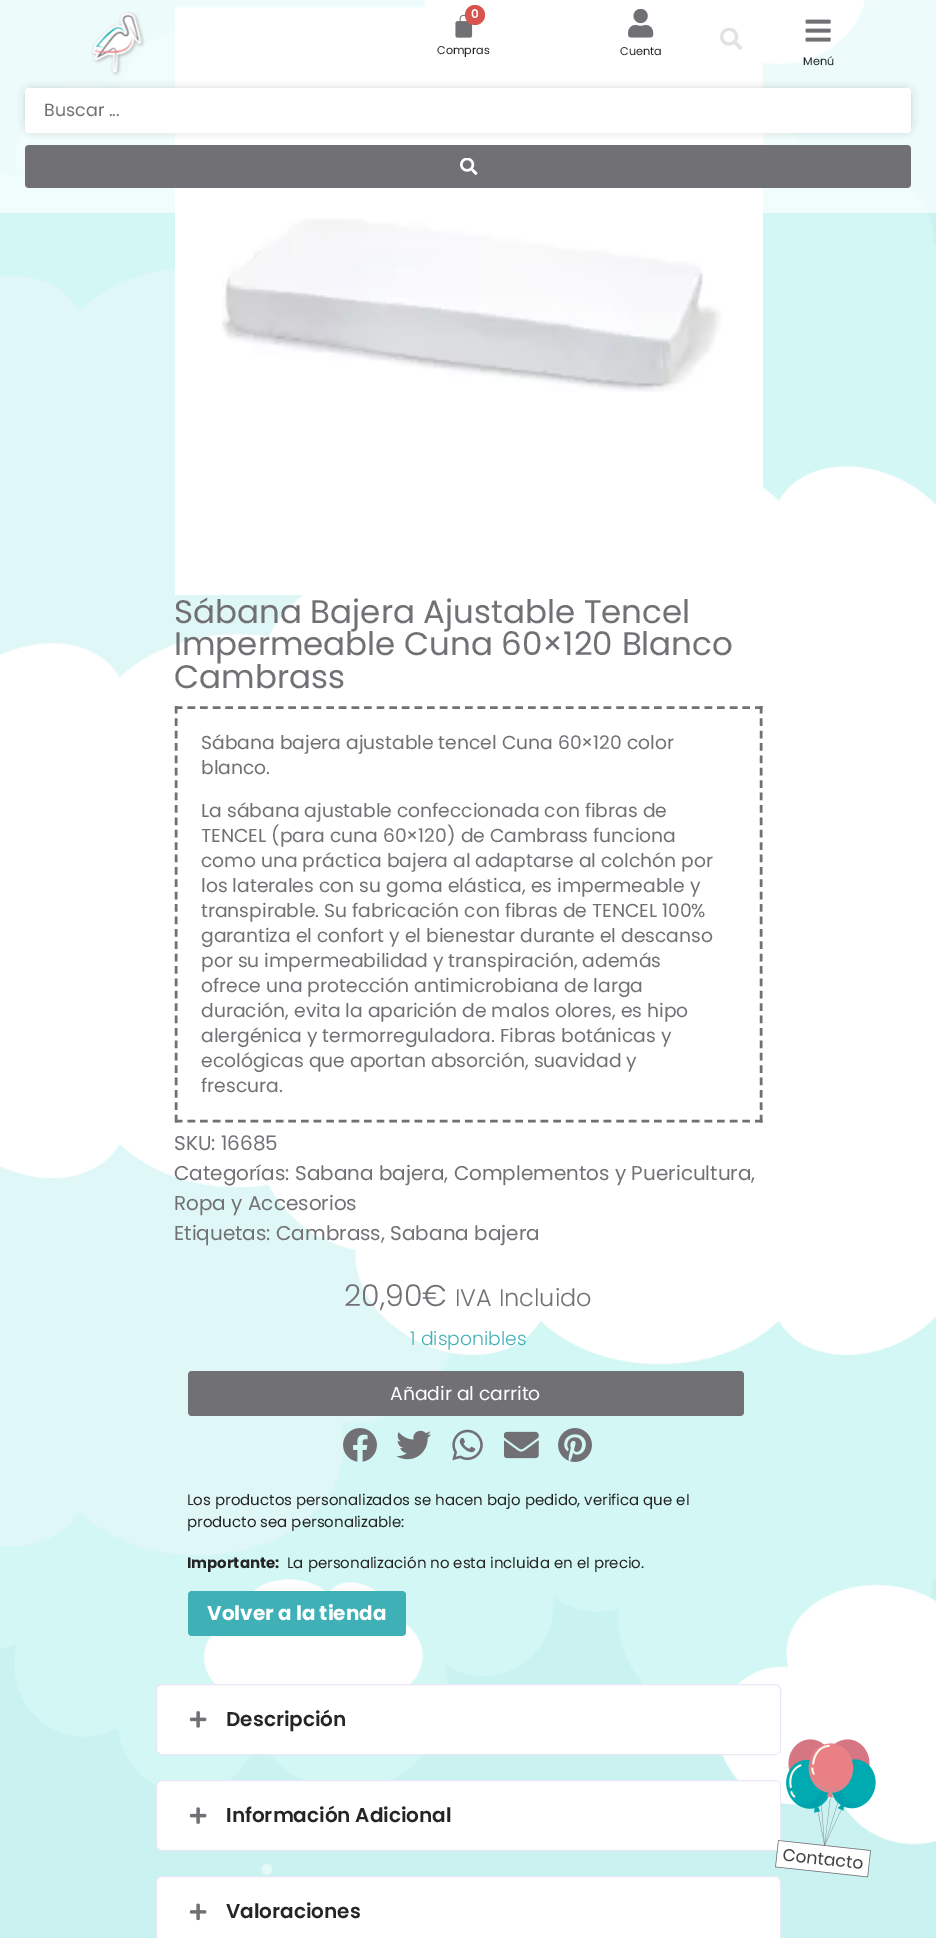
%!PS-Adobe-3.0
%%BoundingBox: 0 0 936 1938
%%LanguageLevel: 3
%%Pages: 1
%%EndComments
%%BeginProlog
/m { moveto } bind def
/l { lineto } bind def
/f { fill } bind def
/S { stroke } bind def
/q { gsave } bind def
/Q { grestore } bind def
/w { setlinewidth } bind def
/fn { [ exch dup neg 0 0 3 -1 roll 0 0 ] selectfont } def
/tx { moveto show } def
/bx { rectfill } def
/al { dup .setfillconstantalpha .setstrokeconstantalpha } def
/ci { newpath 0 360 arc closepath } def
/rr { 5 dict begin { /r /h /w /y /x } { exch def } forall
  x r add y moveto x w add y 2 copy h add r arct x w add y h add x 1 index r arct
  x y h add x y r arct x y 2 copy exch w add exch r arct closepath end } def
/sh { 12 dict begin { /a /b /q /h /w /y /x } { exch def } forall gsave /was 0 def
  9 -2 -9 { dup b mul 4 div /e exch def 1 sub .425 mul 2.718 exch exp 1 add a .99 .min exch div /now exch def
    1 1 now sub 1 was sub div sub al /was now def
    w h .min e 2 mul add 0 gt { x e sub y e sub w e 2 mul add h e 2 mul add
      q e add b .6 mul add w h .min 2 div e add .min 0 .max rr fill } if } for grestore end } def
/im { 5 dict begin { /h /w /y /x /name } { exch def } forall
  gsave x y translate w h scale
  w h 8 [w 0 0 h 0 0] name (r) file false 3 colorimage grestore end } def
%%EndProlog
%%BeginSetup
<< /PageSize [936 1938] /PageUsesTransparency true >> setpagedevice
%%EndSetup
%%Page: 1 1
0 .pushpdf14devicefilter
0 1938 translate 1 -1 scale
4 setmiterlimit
1 setgray
0 0 936 1938 bx
(image0.raw) 0 0 936 1938 im
175 8 588 587 bx
(image6.raw) 175 7 547 385 im
(image7.raw) 720 28 23 22 im
0.69 al
0 0 936 213 bx
1 al
(image1.raw) 91 11 54 65 im
(image2.raw) 455 14 18 24 im
0.851 0.325 0.31 setrgbcolor
475 15 10 ci f
/Poppins-SemiBold 12 fn
1 setgray
(0) 471 18 tx
/Poppins-Regular 11.25 fn
0.145 setgray
(Compras) 437 54 tx
(image3.raw) 628 9 26 29 im
(Cuenta) 620 55 tx
(image4.raw) 805 19 26 23 im
(Menú) 803 65 tx
0 setgray
31 94 874 32 0 6 0.5 sh
1 setgray
25 88 886 45 4 rr f
/Poppins-Regular 17.5 fn
0.443 0.439 0.459 setrgbcolor
(Buscar ...) 44 116 tx
25 145 886 43 4 rr f
(image5.raw) 460 158 18 17 im
/Poppins-Regular 32.5 fn
(Sábana Bajera Ajustable Tencel) 174 623 tx
(Impermeable Cuna 60×120 Blanco) 174 655 tx
(Cambrass) 174 688 tx
2.5 w
[7.5 5.11] 0 setdash
175 707.5 m 762.5 707.5 l S
[7.5 4.89] 0 setdash
761 706 m 761 1122.5 l S
[7.5 5.11] 0 setdash
175 1121 m 762.5 1121 l S
[7.5 4.89] 0 setdash
176 706 m 176 1122.5 l S
/Poppins-Regular 18.75 fn
(Sábana bajera ajustable tencel Cuna 60×120 color) 201 749 tx
(blanco.) 201 774 tx
(La sábana ajustable confeccionada con fibras de) 201 817 tx
(TENCEL \(para cuna 60×120\) de Cambrass funciona) 201 842 tx
(como una práctica bajera al adaptarse al colchón por) 201 867 tx
(los laterales con su goma elástica, es impermeable y) 201 892 tx
(transpirable. Su fabricación con fibras de TENCEL 100%) 201 917 tx
(garantiza el confort y el bienestar durante el descanso) 201 942 tx
(por su impermeabilidad y transpiración, además) 201 967 tx
(ofrece una protección antimicrobiana de larga) 201 992 tx
(duración, evita la aparición de malos olores, es hipo) 201 1017 tx
(alergénica y termorreguladora. Fibras botánicas y) 201 1042 tx
(ecológicas que aportan absorción, suavidad y) 201 1067 tx
(frescura.) 201 1092 tx
/Poppins-Regular 20 fn
(SKU: 16685) 174 1150 tx
(Categorías: Sabana bajera, Complementos y Puericultura,) 174 1180 tx
(Ropa y Accesorios) 174 1210 tx
(Etiquetas: Cambrass, Sabana bajera) 174 1240 tx
/Poppins-Light 30 fn
(20,90€) 344 1306 tx
/Poppins-Light 24 fn
(IVA Incluido) 455 1306 tx
/Poppins-Light 18.75 fn
0.243 0.69 0.714 setrgbcolor
(1 disponibles) 410 1345 tx
0.443 0.439 0.459 setrgbcolor
188 1371 556 45 4 rr f
/Poppins-Regular 18.75 fn
1 setgray
(Añadir al carrito) 390 1400 tx
(image8.raw) 343 1428 34 34 im
(image9.raw) 396 1430 35 30 im
(image10.raw) 452 1429 31 32 im
(image11.raw) 504 1431 35 28 im
(image12.raw) 558 1428 34 34 im
/Poppins-Regular 15 fn
0.145 setgray
(Los productos personalizados se hacen bajo pedido, verifica que el) 187 1505 tx
(producto sea personalizable:) 187 1527 tx
/Poppins-Bold 15 fn
(Importante:) 187 1568 tx
/Poppins-Regular 15 fn
(La personalización no esta incluida en el precio.) 287 1568 tx
0.243 0.69 0.714 setrgbcolor
188 1591 218 45 4 rr f
/Poppins-Bold 20 fn
1 setgray
(Volver a la tienda) 207 1620 tx
156.5 1684.5 624 70 5.5 rr q f Q
0.91 0.91 0.965 setrgbcolor
1 w
[] 0 setdash
S
(image13.raw) 189 1711 18 17 im
/Poppins-SemiBold 20 fn
0.145 setgray
(Descripción) 226 1726 tx
1 setgray
156.5 1780.5 624 70 5.5 rr q f Q
0.91 0.91 0.965 setrgbcolor
S
(image14.raw) 189 1807 18 17 im
0.145 setgray
(Información Adicional) 226 1822 tx
1 setgray
156.5 1876.5 624 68 5.5 rr q f Q
0.91 0.91 0.965 setrgbcolor
S
(image15.raw) 189 1903 18 18 im
0.145 setgray
(Valoraciones) 226 1918 tx
(image16.raw) 775 1739 101 139 im
.poppdf14devicefilter showpage
%%EOF
